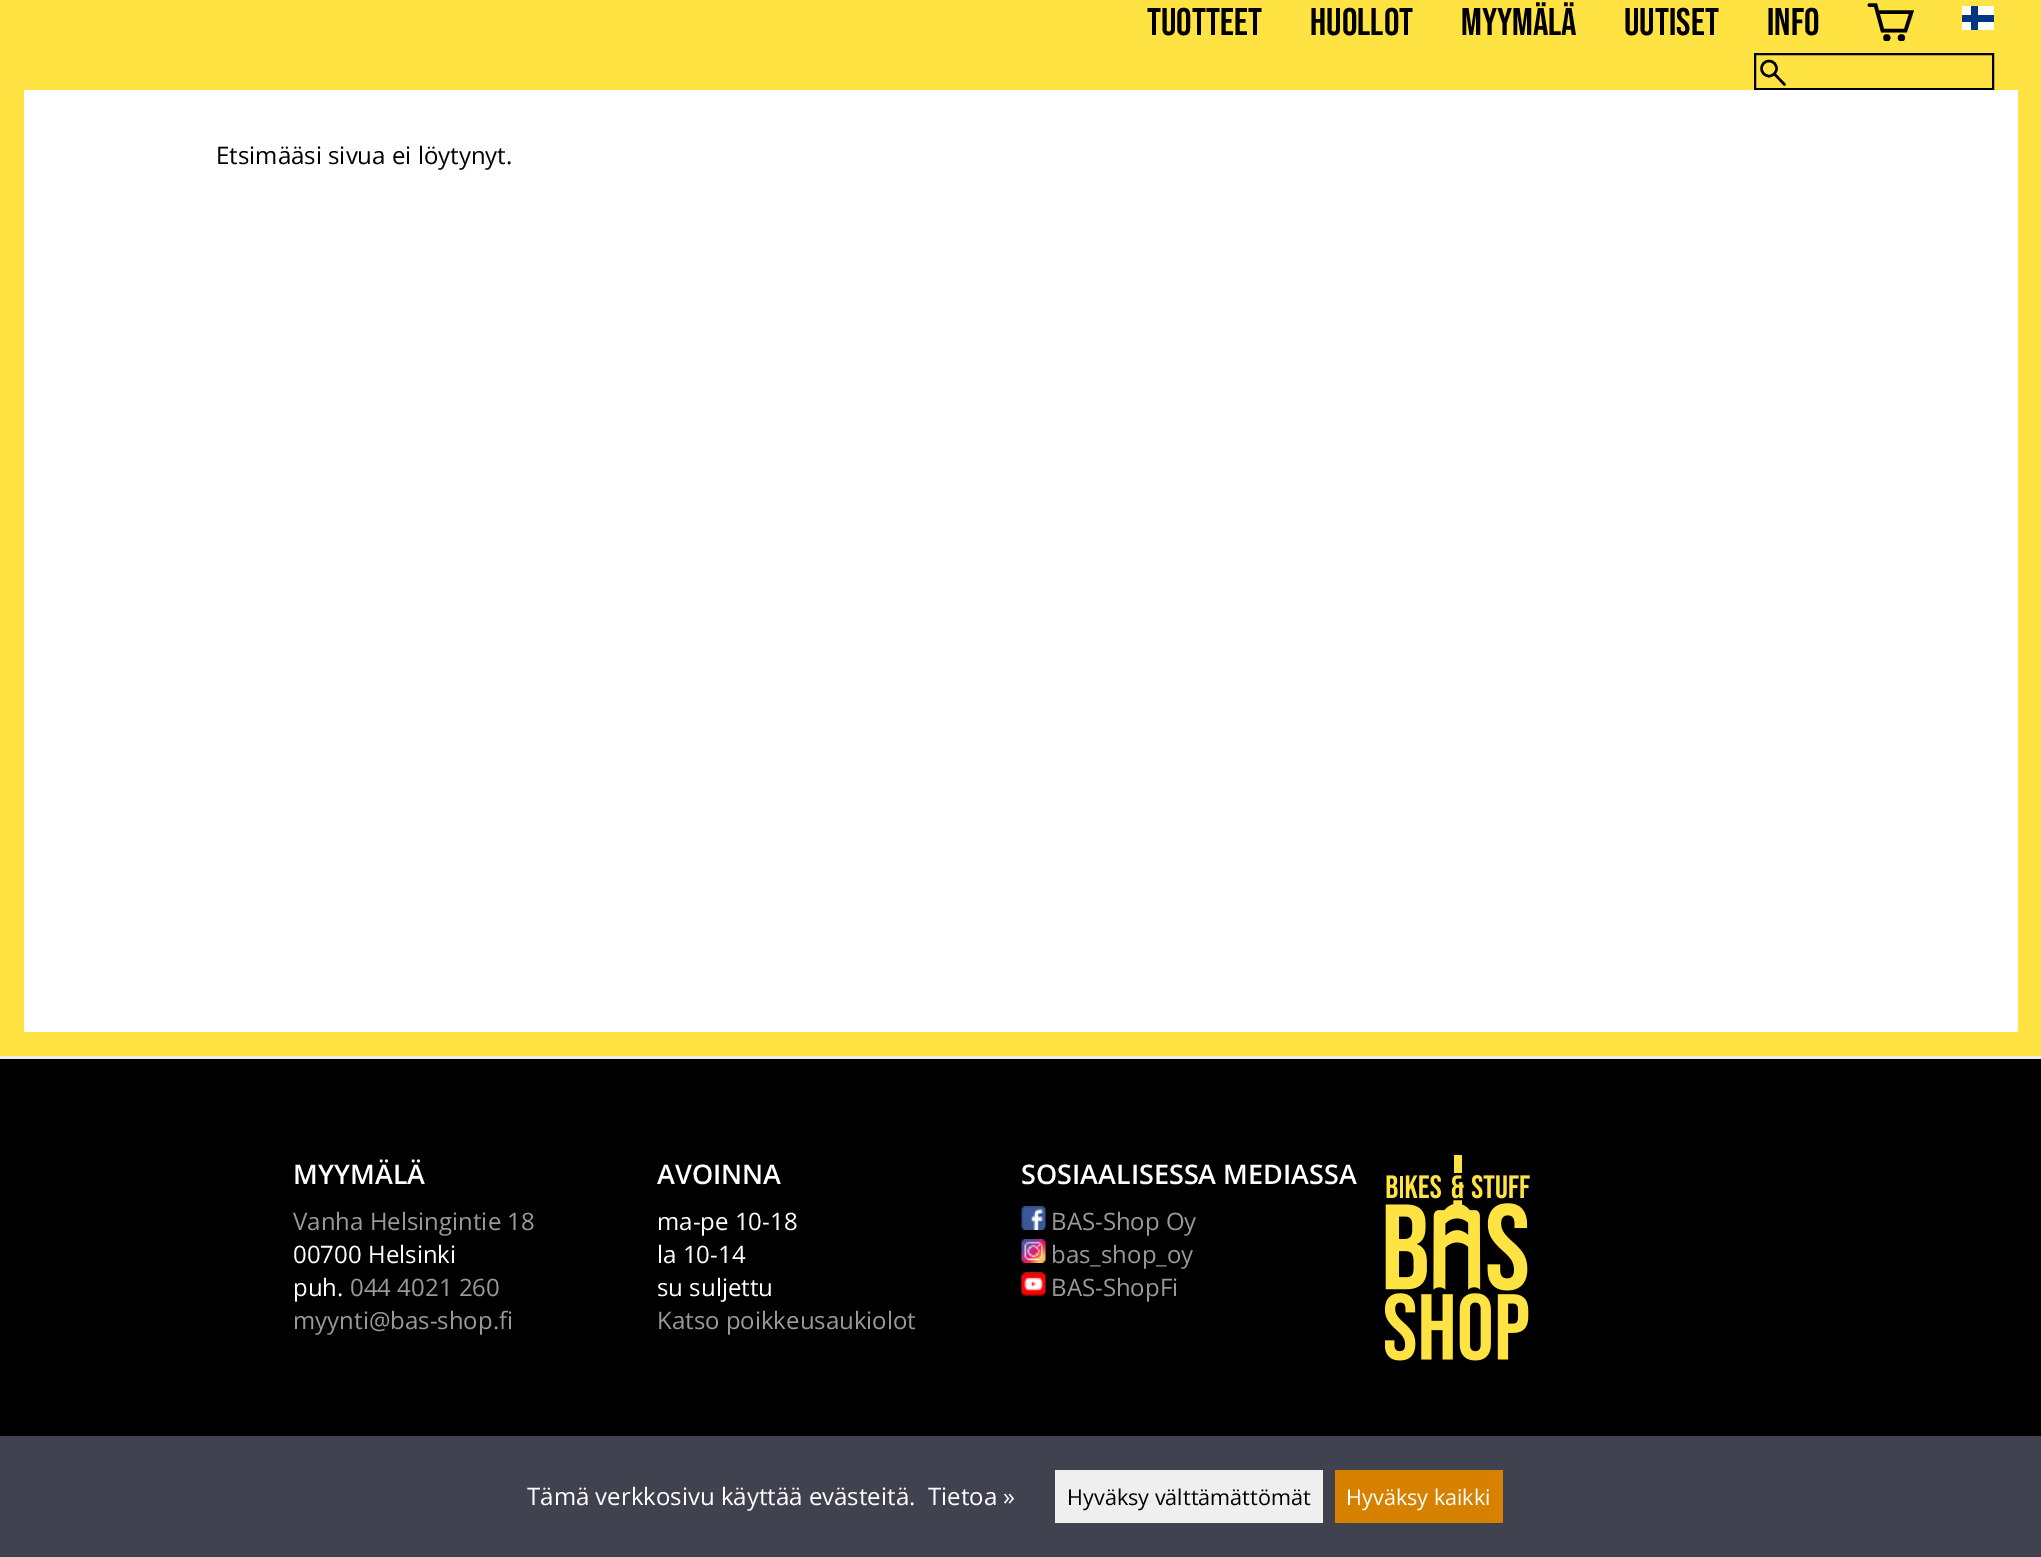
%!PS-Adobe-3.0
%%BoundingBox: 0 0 2041 1557
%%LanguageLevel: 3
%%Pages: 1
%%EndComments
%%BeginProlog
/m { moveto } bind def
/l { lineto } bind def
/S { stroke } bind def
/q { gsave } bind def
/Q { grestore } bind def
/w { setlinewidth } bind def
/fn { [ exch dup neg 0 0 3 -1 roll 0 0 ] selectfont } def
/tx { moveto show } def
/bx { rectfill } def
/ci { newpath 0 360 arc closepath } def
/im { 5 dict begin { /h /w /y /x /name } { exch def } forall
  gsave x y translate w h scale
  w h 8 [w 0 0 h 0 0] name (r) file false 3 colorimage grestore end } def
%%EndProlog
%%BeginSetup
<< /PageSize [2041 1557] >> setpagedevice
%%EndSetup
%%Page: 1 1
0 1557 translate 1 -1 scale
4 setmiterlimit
1 0.89 0.259 setrgbcolor
0 0 2041 1557 bx
/BebasNeue-Regular 38.5 fn
0 setgray
(TUOTTEET) 1147 35 tx
(HUOLLOT) 1310 35 tx
(MYYMÄLÄ) 1461 35 tx
(UUTISET) 1624 35 tx
(INFO) 1767 35 tx
3.6 w
1 setlinecap
1877.5 12 m 1911.5 12 l 1905.5 30.5 l 1882.5 30.5 l 1875.5 5 l 1869.5 5 l S
q
1868 3 46 38 rectclip
0 setlinecap
1886.8 37.8 1.8 ci S
1901.4 37.8 1.8 ci S
Q
1 setgray
1962 6 32 24 bx
0 0.208 0.502 setrgbcolor
1962 15 32 7 bx
1971 6 7 24 bx
0 setgray
2 w
0 setlinecap
1755 54 238 35 rectstroke
2.4 w
1 setlinecap
1784.5 84.5 m 1774.5 74 l S
0 setlinecap
1769 68.5 7.5 ci S
1 setgray
24 90 1994 942 bx
/OpenSans-Regular 24 fn
0 setgray
(Etsimääsi sivua ei löytynyt.) 216 164 tx
0 1059 2041 377 bx
0.933 setgray
0 1056 2041 3 bx
/OpenSans-SemiBold 27 fn
1 setgray
(MYYMÄLÄ) 293 1184 tx
/OpenSans-Regular 24 fn
0.6 setgray
(Vanha Helsingintie 18) 293 1230 tx
1 setgray
(00700 Helsinki) 293 1263 tx
(puh.) 293 1296 tx
0.6 setgray
(044 4021 260) 350 1296 tx
(myynti@bas-shop.fi) 293 1329 tx
/OpenSans-SemiBold 27 fn
1 setgray
(AVOINNA) 657 1184 tx
/OpenSans-Regular 24 fn
(ma-pe 10-18) 657 1230 tx
(la 10-14) 657 1263 tx
(su suljettu) 657 1296 tx
0.6 setgray
(Katso poikkeusaukiolot) 657 1329 tx
/OpenSans-SemiBold 27 fn
1 setgray
(SOSIAALISESSA MEDIASSA) 1021 1184 tx
(image0.raw) 1021 1206 25 24 im
/OpenSans-Regular 24 fn
0.6 setgray
(BAS-Shop Oy) 1051 1230 tx
(image1.raw) 1021 1239 25 24 im
(bas_shop_oy) 1051 1263 tx
(image2.raw) 1021 1272 25 24 im
(BAS-ShopFi) 1051 1296 tx
(image3.raw) 1385 1155 145 206 im
0.255 0.259 0.31 setrgbcolor
0 1436 2041 121 bx
1 setgray
(Tämä verkkosivu käyttää evästeitä.) 527 1505 tx
(Tietoa ») 928 1505 tx
0.937 setgray
1055 1470 268 53 bx
/OpenSans-Regular 21.6 fn
0 setgray
(Hyväksy välttämättömät) 1067 1505 tx
0.843 0.506 0 setrgbcolor
1335 1470 168 53 bx
1 setgray
(Hyväksy kaikki) 1346 1505 tx
showpage
%%EOF
